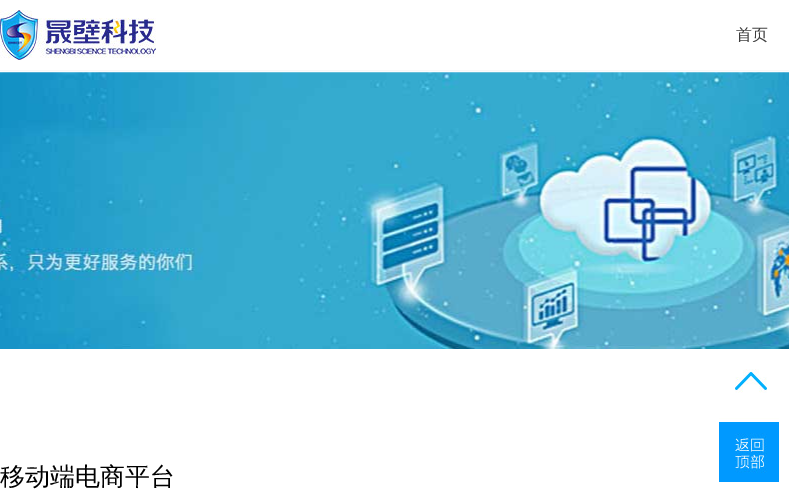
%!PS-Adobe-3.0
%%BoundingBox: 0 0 789 492
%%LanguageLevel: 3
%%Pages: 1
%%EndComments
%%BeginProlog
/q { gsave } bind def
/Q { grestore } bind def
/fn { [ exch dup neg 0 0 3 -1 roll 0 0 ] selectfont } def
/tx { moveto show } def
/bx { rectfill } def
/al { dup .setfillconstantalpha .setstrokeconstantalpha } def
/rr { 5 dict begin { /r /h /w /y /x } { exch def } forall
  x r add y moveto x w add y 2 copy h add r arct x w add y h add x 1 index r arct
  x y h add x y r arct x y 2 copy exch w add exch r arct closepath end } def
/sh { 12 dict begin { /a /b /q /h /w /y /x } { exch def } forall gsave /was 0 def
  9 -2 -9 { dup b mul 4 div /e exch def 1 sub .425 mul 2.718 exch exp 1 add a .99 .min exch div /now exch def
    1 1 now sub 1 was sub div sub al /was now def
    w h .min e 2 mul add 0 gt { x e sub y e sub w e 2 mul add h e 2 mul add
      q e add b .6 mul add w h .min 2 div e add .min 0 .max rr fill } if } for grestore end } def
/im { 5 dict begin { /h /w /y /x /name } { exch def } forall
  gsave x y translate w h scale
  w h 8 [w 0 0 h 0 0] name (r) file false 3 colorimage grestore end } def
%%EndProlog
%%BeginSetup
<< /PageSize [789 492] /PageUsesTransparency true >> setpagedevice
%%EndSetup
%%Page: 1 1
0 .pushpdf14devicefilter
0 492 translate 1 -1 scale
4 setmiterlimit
1 setgray
0 0 789 492 bx
(image1.raw) 0 72 789 277 im
q
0 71 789 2 rectclip
0.988 setgray
0 1 789 71 0 0.5 0.95 sh
Q
0.973 setgray
0 70 789 1 bx
(image0.raw) 0 10 156 50 im
/WenQuanYiZenHei-Medium 16 fn
0.239 setgray
(首页) 736 40 tx
/WenQuanYiZenHei-Medium 25 fn
0 setgray
(移动端电商平台) 0 485 tx
(image2.raw) 719 369 60 113 im
.poppdf14devicefilter showpage
%%EOF
